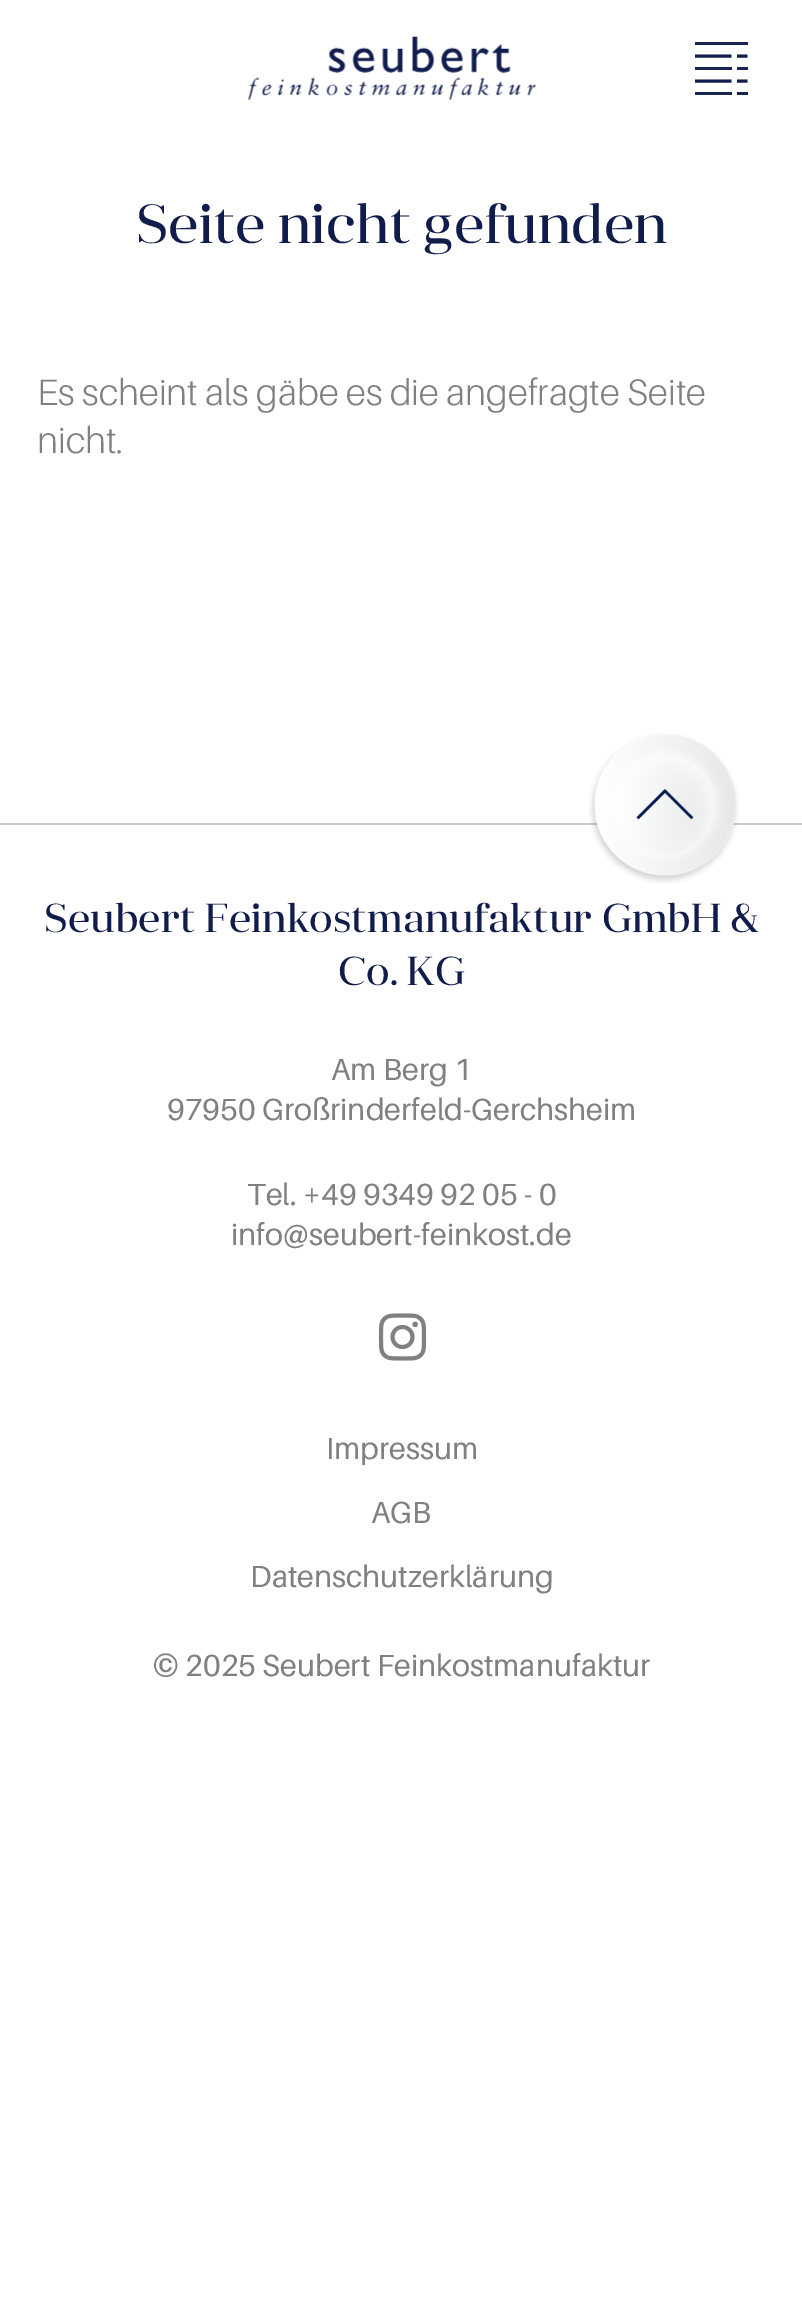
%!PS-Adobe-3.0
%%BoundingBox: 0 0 802 2300
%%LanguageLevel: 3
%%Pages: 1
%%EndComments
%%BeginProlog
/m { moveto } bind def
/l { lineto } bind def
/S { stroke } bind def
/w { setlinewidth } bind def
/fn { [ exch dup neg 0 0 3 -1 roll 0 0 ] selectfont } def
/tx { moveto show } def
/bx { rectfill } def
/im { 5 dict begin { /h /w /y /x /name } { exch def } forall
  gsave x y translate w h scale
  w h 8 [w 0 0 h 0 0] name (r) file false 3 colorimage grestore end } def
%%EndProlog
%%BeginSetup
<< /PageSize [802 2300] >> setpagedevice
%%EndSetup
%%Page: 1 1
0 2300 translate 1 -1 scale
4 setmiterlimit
1 setgray
0 0 802 2300 bx
(image0.raw) 248 36 288 64 im
0.094 0.141 0.322 setrgbcolor
695 42 53 3 bx
695 67 37 3 bx
0.063 0.11 0.298 setrgbcolor
2.9 w
695 56 m 731.5 56 l S
0.094 0.141 0.322 setrgbcolor
695 92 37 3 bx
0.063 0.11 0.298 setrgbcolor
695 81 m 731.5 81 l S
0.094 0.141 0.322 setrgbcolor
737 92 11 3 bx
0.063 0.11 0.298 setrgbcolor
737 81 m 747.5 81 l S
0.094 0.141 0.322 setrgbcolor
737 67 11 3 bx
0.063 0.11 0.298 setrgbcolor
737 56 m 747.5 56 l S
/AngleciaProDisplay-Regular 55.1 fn
(Seite nicht gefunden) 136 243 tx
/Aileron-Light 36.75 fn
0.502 setgray
(Es scheint als gäbe es die angefragte Seite) 37 405 tx
(nicht.) 37 453 tx
0.8 setgray
0 823 802 2 bx
(image1.raw) 589 733 150 151 im
/AngleciaProDisplay-Regular 40.4 fn
0.063 0.11 0.298 setrgbcolor
(Seubert Feinkostmanufaktur GmbH &) 44 932 tx
(Co. KG) 338 985 tx
/Aileron-Regular 30.5 fn
0.502 setgray
(Am Berg 1) 331 1080 tx
(97950 Großrinderfeld-Gerchsheim) 167 1120 tx
(Tel. +49 9349 92 05 - 0) 247 1205 tx
(info@seubert-feinkost.de) 231 1245 tx
(image2.raw) 378 1313 49 48 im
(Impressum) 326 1459 tx
(AGB) 371 1523 tx
(Datenschutzerklärung) 250 1587 tx
(© 2025 Seubert Feinkostmanufaktur) 153 1676 tx
showpage
%%EOF
